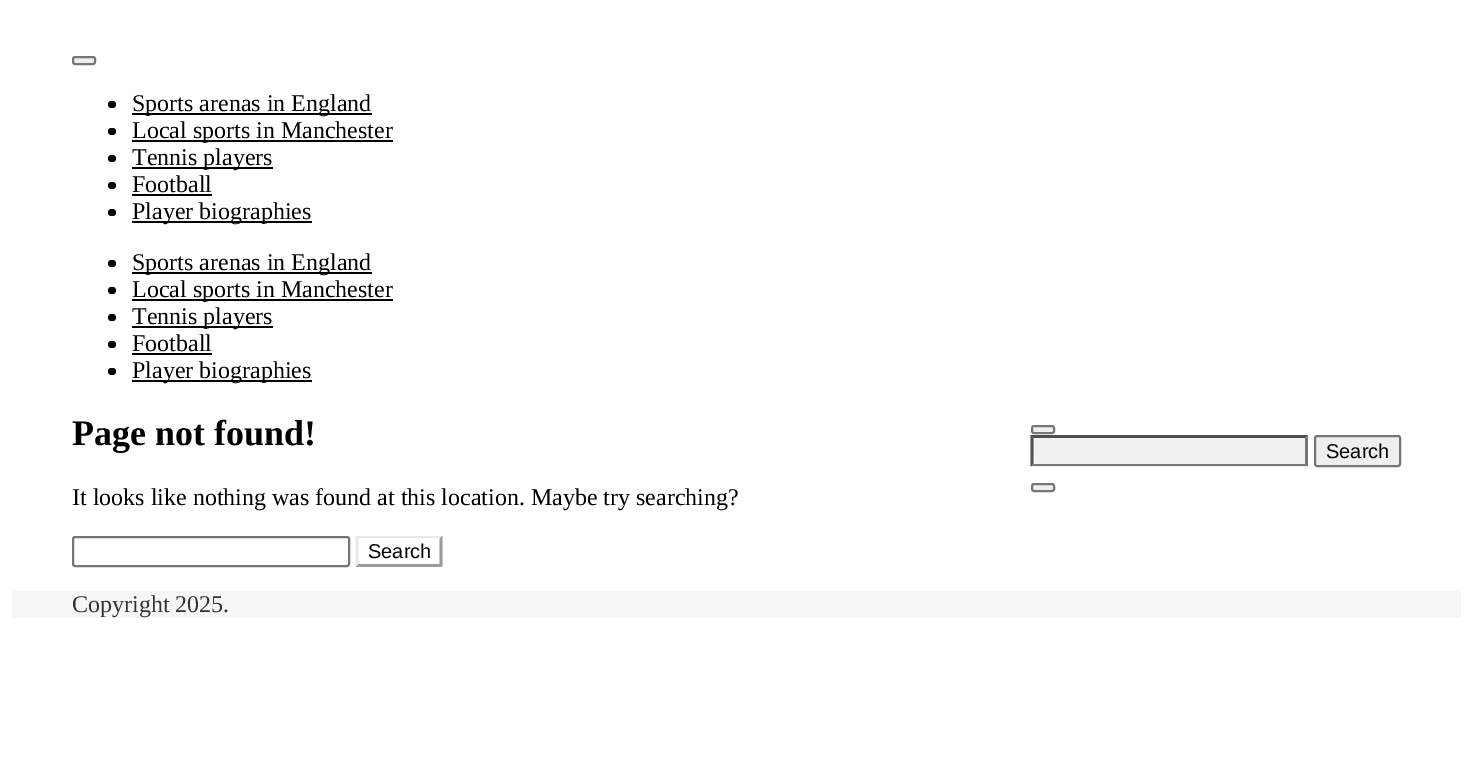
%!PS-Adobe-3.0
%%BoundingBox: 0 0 1472 769
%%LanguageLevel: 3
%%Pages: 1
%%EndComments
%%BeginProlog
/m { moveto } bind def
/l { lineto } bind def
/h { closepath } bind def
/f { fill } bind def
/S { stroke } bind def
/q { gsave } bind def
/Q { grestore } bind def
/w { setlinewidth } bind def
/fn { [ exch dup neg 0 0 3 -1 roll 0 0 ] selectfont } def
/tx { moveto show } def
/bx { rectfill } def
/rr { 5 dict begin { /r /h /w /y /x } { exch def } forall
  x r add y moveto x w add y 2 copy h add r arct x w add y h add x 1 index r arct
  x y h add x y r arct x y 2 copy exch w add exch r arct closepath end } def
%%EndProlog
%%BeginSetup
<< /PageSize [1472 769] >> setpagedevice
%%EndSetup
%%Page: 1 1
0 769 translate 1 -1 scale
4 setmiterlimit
1 setgray
0 0 1472 769 bx
0.937 setgray
73 57 22 7 2 rr q f Q
0.463 setgray
2 w
S
0 setgray
108 101 8 7 3.5 rr f
132 113 240 2 bx
/LiberationSerif-Regular 24 fn
(Sports arenas in England) 132 111 tx
108 128 8 7 3.5 rr f
132 140 261 2 bx
(Local sports in Manchester) 132 138 tx
108 155 8 7 3.5 rr f
132 167 141 2 bx
(Tennis players) 132 165 tx
108 182 8 7 3.5 rr f
(Football) 132 192 tx
132 194 80 2 bx
108 209 8 7 3.5 rr f
132 221 180 2 bx
(Player biographies) 132 219 tx
108 260 8 7 3.5 rr f
132 272 240 2 bx
(Sports arenas in England) 132 270 tx
108 287 8 7 3.5 rr f
132 299 261 2 bx
(Local sports in Manchester) 132 297 tx
108 314 8 7 3.5 rr f
132 326 141 2 bx
(Tennis players) 132 324 tx
108 341 8 7 3.5 rr f
(Football) 132 351 tx
132 353 80 2 bx
108 368 8 7 3.5 rr f
132 380 180 2 bx
(Player biographies) 132 378 tx
0.937 setgray
1032 426 22 7 2 rr q f Q
0.463 setgray
S
0.945 setgray
1031 435 277 32 bx
0.31 setgray
1030 435 m 1308 435 l 1305 438 l 1034 438 l h f
0.463 setgray
1308 435 m 1308 466.5 l 1305 463.5 l 1305 438 l h f
1308 466 m 1030 466 l 1034 464 l 1305 464 l h f
0.31 setgray
1030.5 466.5 m 1030.5 435 l 1033.5 438 l 1033.5 463.5 l h f
0.937 setgray
1315 436 85 30 2 rr q f Q
0.463 setgray
S
/LiberationSans-Regular 20 fn
0 setgray
(Search) 1326 458 tx
0.937 setgray
1032 484 22 7 2 rr q f Q
0.463 setgray
S
/LiberationSerif-Bold 36 fn
0 setgray
(Page not found!) 72 445 tx
/LiberationSerif-Regular 24 fn
(It looks like nothing was found at this location. Maybe try searching?) 72 505 tx
0.463 setgray
73 537 276 29 2 rr S
0.91 setgray
356 536 m 442 536 l 440 538 l 358 538 l h f
0.608 setgray
442.5 535.5 m 442.5 567 l 439.5 564 l 439.5 538.5 l h f
442 567 m 356 567 l 358 564 l 440 564 l h f
0.91 setgray
355.5 567 m 355.5 535.5 l 358.5 538.5 l 358.5 564 l h f
/LiberationSans-Regular 20 fn
0 setgray
(Search) 368 558 tx
0.965 setgray
12 591 1449 27 bx
/LiberationSerif-Regular 24 fn
0.2 setgray
(Copyright 2025.) 72 612 tx
showpage
%%EOF
